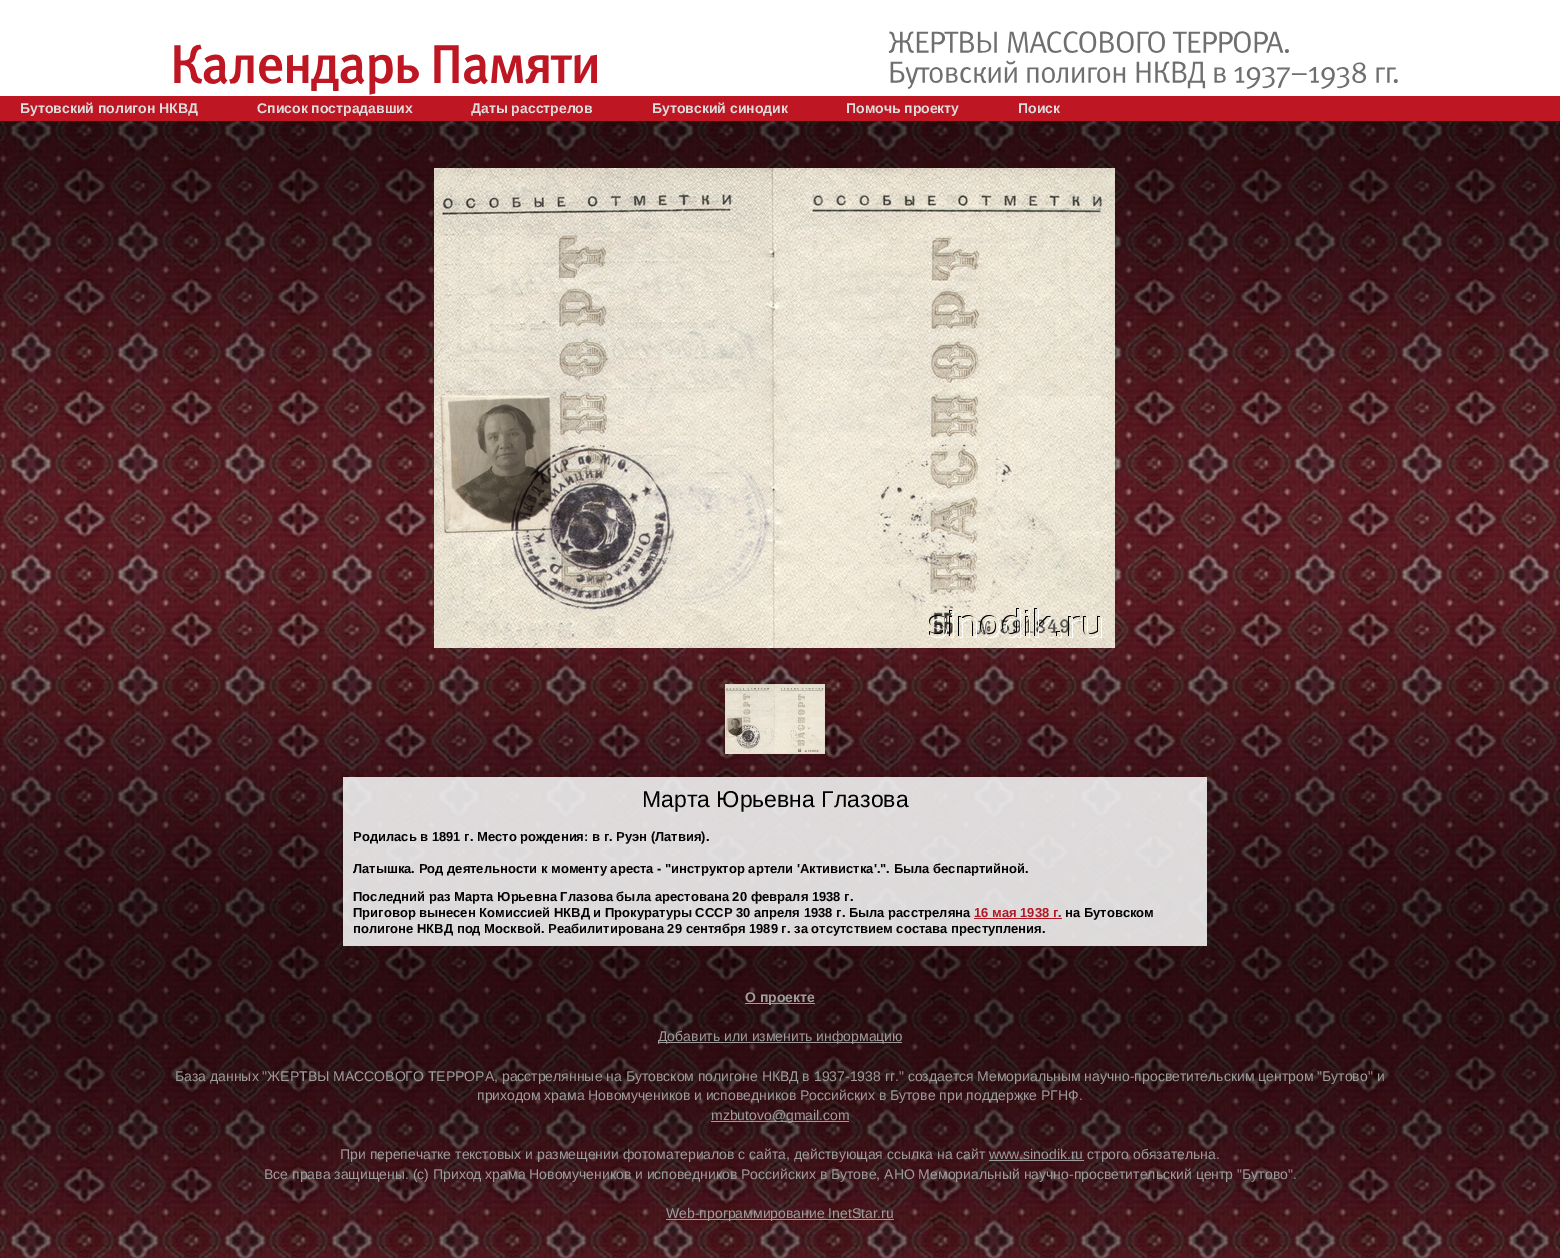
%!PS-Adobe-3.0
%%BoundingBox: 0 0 1560 1258
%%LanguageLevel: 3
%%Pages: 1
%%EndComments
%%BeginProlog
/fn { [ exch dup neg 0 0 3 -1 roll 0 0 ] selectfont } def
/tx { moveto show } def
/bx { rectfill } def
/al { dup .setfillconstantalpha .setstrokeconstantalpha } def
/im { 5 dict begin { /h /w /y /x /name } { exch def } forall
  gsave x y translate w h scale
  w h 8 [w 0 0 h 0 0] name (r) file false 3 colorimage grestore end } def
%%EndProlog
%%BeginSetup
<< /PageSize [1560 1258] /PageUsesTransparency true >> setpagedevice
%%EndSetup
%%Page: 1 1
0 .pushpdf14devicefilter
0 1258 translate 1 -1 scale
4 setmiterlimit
1 setgray
0 0 1560 1258 bx
(image0.raw) 0 121 1560 1137 im
(image1.raw) 174 44 245 51 im
(image2.raw) 434 45 163 40 im
(image3.raw) 888 31 109 22 im
(image4.raw) 1007 31 158 22 im
(image5.raw) 1172 31 117 22 im
(image6.raw) 890 60 127 29 im
(image7.raw) 1027 67 99 16 im
(image8.raw) 1136 61 70 28 im
(image9.raw) 1214 67 12 16 im
(image10.raw) 1234 62 132 27 im
(image11.raw) 1376 67 22 16 im
0.745 0.086 0.133 setrgbcolor
0 96 1560 25 bx
/LiberationSans-Bold 14 fn
0.867 setgray
(Бутовский полигон НКВД) 20 113 tx
(Список пострадавших) 257 113 tx
(Даты расстрелов) 471 113 tx
(Бутовский синодик) 652 113 tx
(Помочь проекту) 846 113 tx
(Поиск) 1018 113 tx
(image12.raw) 434 168 681 480 im
(image13.raw) 725 684 100 70 im
0.88 al
0.965 setgray
343 777 864 169 bx
/LiberationSans-Regular 23 fn
1 al
0 setgray
(Марта Юрьевна Глазова) 642 807 tx
/LiberationSans-Bold 13 fn
(Родилась в 1891 г. Место рождения: в г. Руэн \(Латвия\).) 353 841 tx
(Латышка. Род деятельности к моменту ареста - "инструктор артели 'Активистка'.". Была беспартийной.) 353 873 tx
(Последний раз Марта Юрьевна Глазова была арестована 20 февраля 1938 г.) 353 901 tx
(Приговор вынесен Комиссией НКВД и Прокуратуры СССР 30 апреля 1938 г. Была расстреляна) 353 917 tx
0.698 0.086 0.133 setrgbcolor
(16 мая 1938 г.) 974 917 tx
974 918 88 1 bx
0 setgray
(на Бутовском) 1065 917 tx
(полигоне НКВД под Москвой. Реабилитирована 29 сентября 1989 г. за отсутствием состава преступления.) 353 933 tx
0.616 setgray
745 1003 70 1 bx
/LiberationSans-Bold 14 fn
(О проекте) 745 1002 tx
658 1042 244 1 bx
/LiberationSans-Regular 14 fn
(Добавить или изменить информацию) 658 1041 tx
(База данных "ЖЕРТВЫ МАССОВОГО ТЕРРОРА, расстрелянные на Бутовском полигоне НКВД в 1937-1938 гг." создается Мемориальным научно-просветительским центром "Бутово" и) 175 1081 tx
(приходом храма Новомучеников и исповедников Российских в Бутове при поддержке РГНФ.) 477 1100 tx
711 1121 138 1 bx
(mzbutovo@gmail.com) 711 1120 tx
(При перепечатке текстовых и размещении фотоматериалов с сайта, действующая ссылка на сайт www.sinodik.ru строго обязательна.) 340 1159 tx
989 1160 95 1 bx
(Все права защищены. \(с\) Приход храма Новомучеников и исповедников Российских в Бутове, АНО Мемориальный научно-просветительский центр "Бутово".) 264 1179 tx
666 1219 228 1 bx
(Web-программирование InetStar.ru) 666 1218 tx
.poppdf14devicefilter showpage
%%EOF
